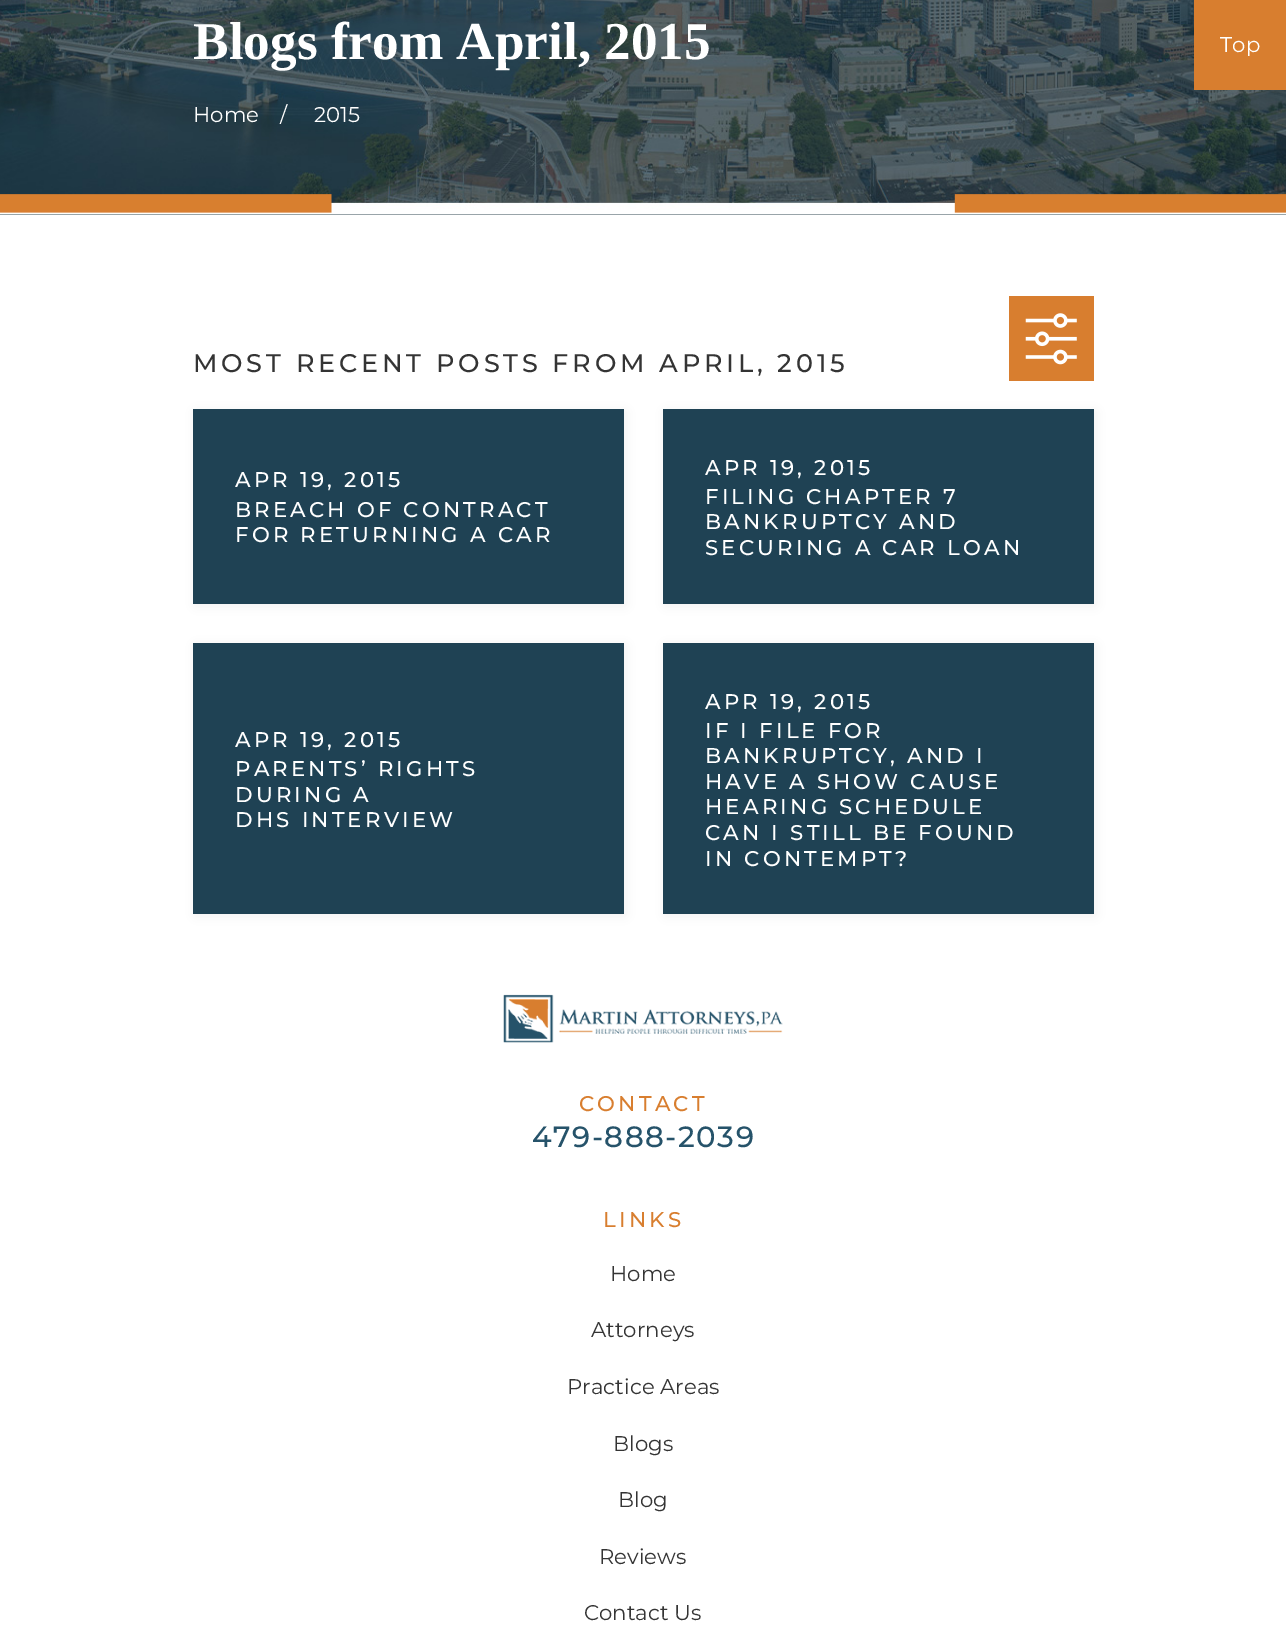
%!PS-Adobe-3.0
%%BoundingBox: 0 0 1286 1643
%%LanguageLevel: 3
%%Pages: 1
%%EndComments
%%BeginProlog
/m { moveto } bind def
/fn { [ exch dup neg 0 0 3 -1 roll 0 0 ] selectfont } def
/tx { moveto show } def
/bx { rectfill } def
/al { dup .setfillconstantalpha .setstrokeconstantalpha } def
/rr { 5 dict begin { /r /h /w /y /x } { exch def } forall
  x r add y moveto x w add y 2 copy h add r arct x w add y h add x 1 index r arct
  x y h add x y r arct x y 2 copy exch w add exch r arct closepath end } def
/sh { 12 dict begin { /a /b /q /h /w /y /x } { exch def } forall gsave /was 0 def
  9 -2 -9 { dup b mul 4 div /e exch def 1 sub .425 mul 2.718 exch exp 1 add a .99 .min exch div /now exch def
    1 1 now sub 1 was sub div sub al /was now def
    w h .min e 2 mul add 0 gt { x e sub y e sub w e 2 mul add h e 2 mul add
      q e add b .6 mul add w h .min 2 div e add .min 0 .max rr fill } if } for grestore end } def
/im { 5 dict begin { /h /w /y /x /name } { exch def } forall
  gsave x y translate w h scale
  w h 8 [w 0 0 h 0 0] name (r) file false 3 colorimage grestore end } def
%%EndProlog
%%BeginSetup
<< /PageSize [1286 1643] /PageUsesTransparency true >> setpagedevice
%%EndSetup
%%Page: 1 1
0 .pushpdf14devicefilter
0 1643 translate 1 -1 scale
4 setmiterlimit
1 setgray
0 0 1286 1643 bx
0.09 0.184 0.235 setrgbcolor
0 214 1286 1 bx
(image0.raw) 0 0 1286 215 im
/LiberationSerif-Bold 53.25 fn
1 setgray
(Blogs from April, 2015) 193 59 tx
/Montserrat-Regular 21.25 fn
(Home) 193 122 tx
(/) 280 122 tx
(2015) 314 122 tx
/Montserrat-Medium 25.5 fn
0.204 setgray
193 372 m 3.85 0 (MOST RECENT POSTS FROM APRIL, 2015) ashow
0.847 0.494 0.184 setrgbcolor
1009 296 85 85 bx
(image1.raw) 1025 313 52 52 im
0 setgray
195 411 431 195 0 5.5 0.05 sh
0.122 0.259 0.329 setrgbcolor
193 409 431 195 bx
/Montserrat-Medium 21.25 fn
1 setgray
235 487 m 3.2 0 (APR 19, 2015) ashow
235 517 m 3.2 0 (BREACH OF CONTRACT) ashow
235 542 m 3.2 0 (FOR RETURNING A CAR) ashow
0 setgray
665 411 431 195 0 5.5 0.05 sh
0.122 0.259 0.329 setrgbcolor
663 409 431 195 bx
1 setgray
705 475 m 3.2 0 (APR 19, 2015) ashow
705 504 m 3.2 0 (FILING CHAPTER 7) ashow
705 529 m 3.2 0 (BANKRUPTCY AND) ashow
705 555 m 3.2 0 (SECURING A CAR LOAN) ashow
0 setgray
195 645 431 271 0 5.5 0.05 sh
0.122 0.259 0.329 setrgbcolor
193 643 431 271 bx
1 setgray
235 747 m 3.2 0 (APR 19, 2015) ashow
235 776 m 3.2 0 (PARENTS’ RIGHTS) ashow
235 802 m 3.2 0 (DURING A) ashow
235 827 m 3.2 0 (DHS INTERVIEW) ashow
0 setgray
665 645 431 271 0 5.5 0.05 sh
0.122 0.259 0.329 setrgbcolor
663 643 431 271 bx
1 setgray
705 709 m 3.2 0 (APR 19, 2015) ashow
705 738 m 3.2 0 (IF I FILE FOR) ashow
705 763 m 3.2 0 (BANKRUPTCY, AND I) ashow
705 789 m 3.2 0 (HAVE A SHOW CAUSE) ashow
705 814 m 3.2 0 (HEARING SCHEDULE) ashow
705 840 m 3.2 0 (CAN I STILL BE FOUND) ashow
705 866 m 3.2 0 (IN CONTEMPT?) ashow
0.847 0.494 0.184 setrgbcolor
1194 0 92 90 bx
/Montserrat-Regular 21.25 fn
1 setgray
(Top) 1220 52 tx
(image2.raw) 503 994 280 49 im
/Montserrat-Medium 21.25 fn
0.847 0.494 0.184 setrgbcolor
579 1111 m 3.2 0 (CONTACT) ashow
/Montserrat-Medium 29.25 fn
0.149 0.325 0.416 setrgbcolor
532 1147 m 1.5 0 (479-888-2039) ashow
/Montserrat-Medium 21.25 fn
0.847 0.494 0.184 setrgbcolor
603 1227 m 3.2 0 (LINKS) ashow
/Montserrat-Regular 21.25 fn
0.204 setgray
(Home) 610 1281 tx
(Attorneys) 591 1337 tx
(Practice Areas) 567 1394 tx
(Blogs) 613 1451 tx
(Blog) 618 1507 tx
(Reviews) 599 1564 tx
(Contact Us) 584 1620 tx
.poppdf14devicefilter showpage
%%EOF
